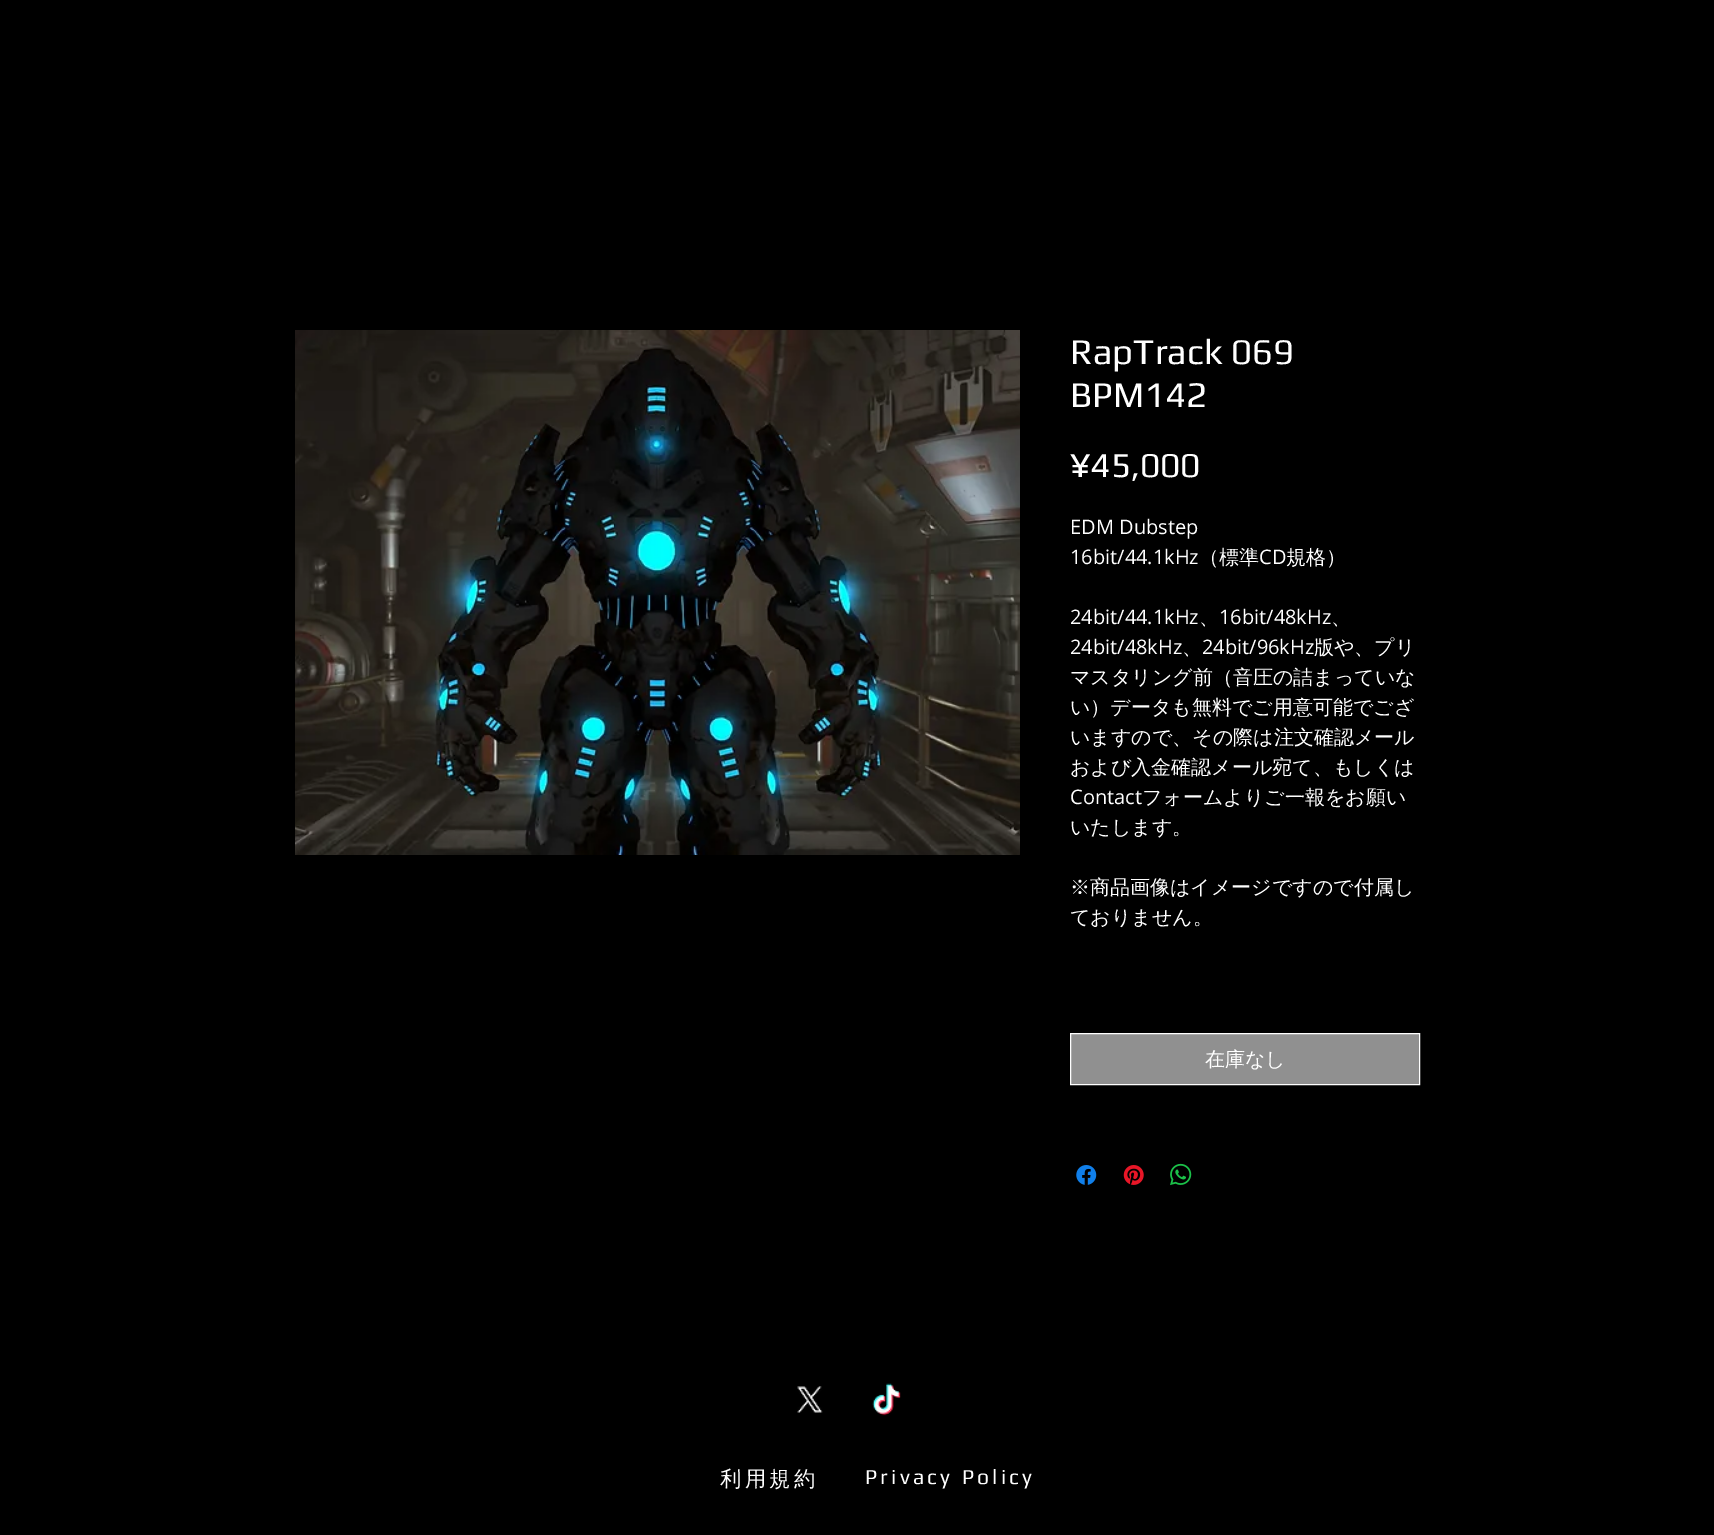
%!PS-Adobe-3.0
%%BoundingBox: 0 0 1714 1535
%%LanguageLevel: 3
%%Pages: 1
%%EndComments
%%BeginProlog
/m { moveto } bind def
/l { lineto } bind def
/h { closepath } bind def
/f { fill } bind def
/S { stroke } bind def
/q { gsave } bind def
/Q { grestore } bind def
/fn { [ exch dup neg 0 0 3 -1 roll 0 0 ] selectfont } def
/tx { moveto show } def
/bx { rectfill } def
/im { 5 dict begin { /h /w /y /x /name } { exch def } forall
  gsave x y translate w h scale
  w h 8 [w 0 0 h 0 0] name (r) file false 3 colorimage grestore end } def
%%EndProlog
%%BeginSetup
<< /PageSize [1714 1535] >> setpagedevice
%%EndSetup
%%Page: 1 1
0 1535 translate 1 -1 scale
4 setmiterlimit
0 setgray
0 0 1714 1535 bx
(image0.raw) 295 330 725 525 im
/Play-Regular 36.25 fn
1 setgray
(RapTrack 069) 1070 364 tx
(BPM142) 1070 407 tx
/Play-Regular 35 fn
(¥45,000) 1070 477 tx
/OpenSans-Regular 20 fn
(EDM Dubstep) 1070 534 tx
(16bit/44.1kHz) 1070 564 tx
/WenQuanYiZenHei-Medium 20 fn
(（標準) 1199 564 tx
/OpenSans-Regular 20 fn
(CD) 1259 564 tx
/WenQuanYiZenHei-Medium 20 fn
(規格）) 1286 564 tx
/OpenSans-Regular 20 fn
(24bit/44.1kHz) 1070 624 tx
/WenQuanYiZenHei-Medium 20 fn
(、) 1199 624 tx
/OpenSans-Regular 20 fn
(16bit/48kHz) 1219 624 tx
/WenQuanYiZenHei-Medium 20 fn
(、) 1331 624 tx
/OpenSans-Regular 20 fn
(24bit/48kHz) 1070 654 tx
/WenQuanYiZenHei-Medium 20 fn
(、) 1182 654 tx
/OpenSans-Regular 20 fn
(24bit/96kHz) 1202 654 tx
/WenQuanYiZenHei-Medium 20 fn
(版や、プリ) 1314 654 tx
(マスタリング前（音圧の詰まっていな) 1070 684 tx
(い）データも無料でご用意可能でござ) 1070 714 tx
(いますので、その際は注文確認メール) 1070 744 tx
(および入金確認メール宛て、もしくは) 1070 774 tx
/OpenSans-Regular 20 fn
(Contact) 1070 804 tx
/WenQuanYiZenHei-Medium 20 fn
(フォームよりご一報をお願い) 1142 804 tx
(いたします。) 1070 834 tx
(※商品画像はイメージですので付属し) 1070 894 tx
(ておりません。) 1070 924 tx
0.565 setgray
1070.5 1033.5 m 1419.5 1033.5 l 1419.5 1084.5 l 1070.5 1084.5 l h q f Q
1 setgray
S
(在庫なし) 1205 1066 tx
(image1.raw) 1076 1165 21 20 im
(image2.raw) 1123 1165 21 20 im
(image3.raw) 1170 1163 22 23 im
(image4.raw) 797 1386 26 27 im
(image5.raw) 872 1383 29 33 im
/WenQuanYiZenHei-Medium 21.25 fn
720 1486 m 3.25 0 (利用規約) ashow
/Play-Regular 21.25 fn
865 1484 m 3.25 0 (Privacy Policy) ashow
showpage
%%EOF
